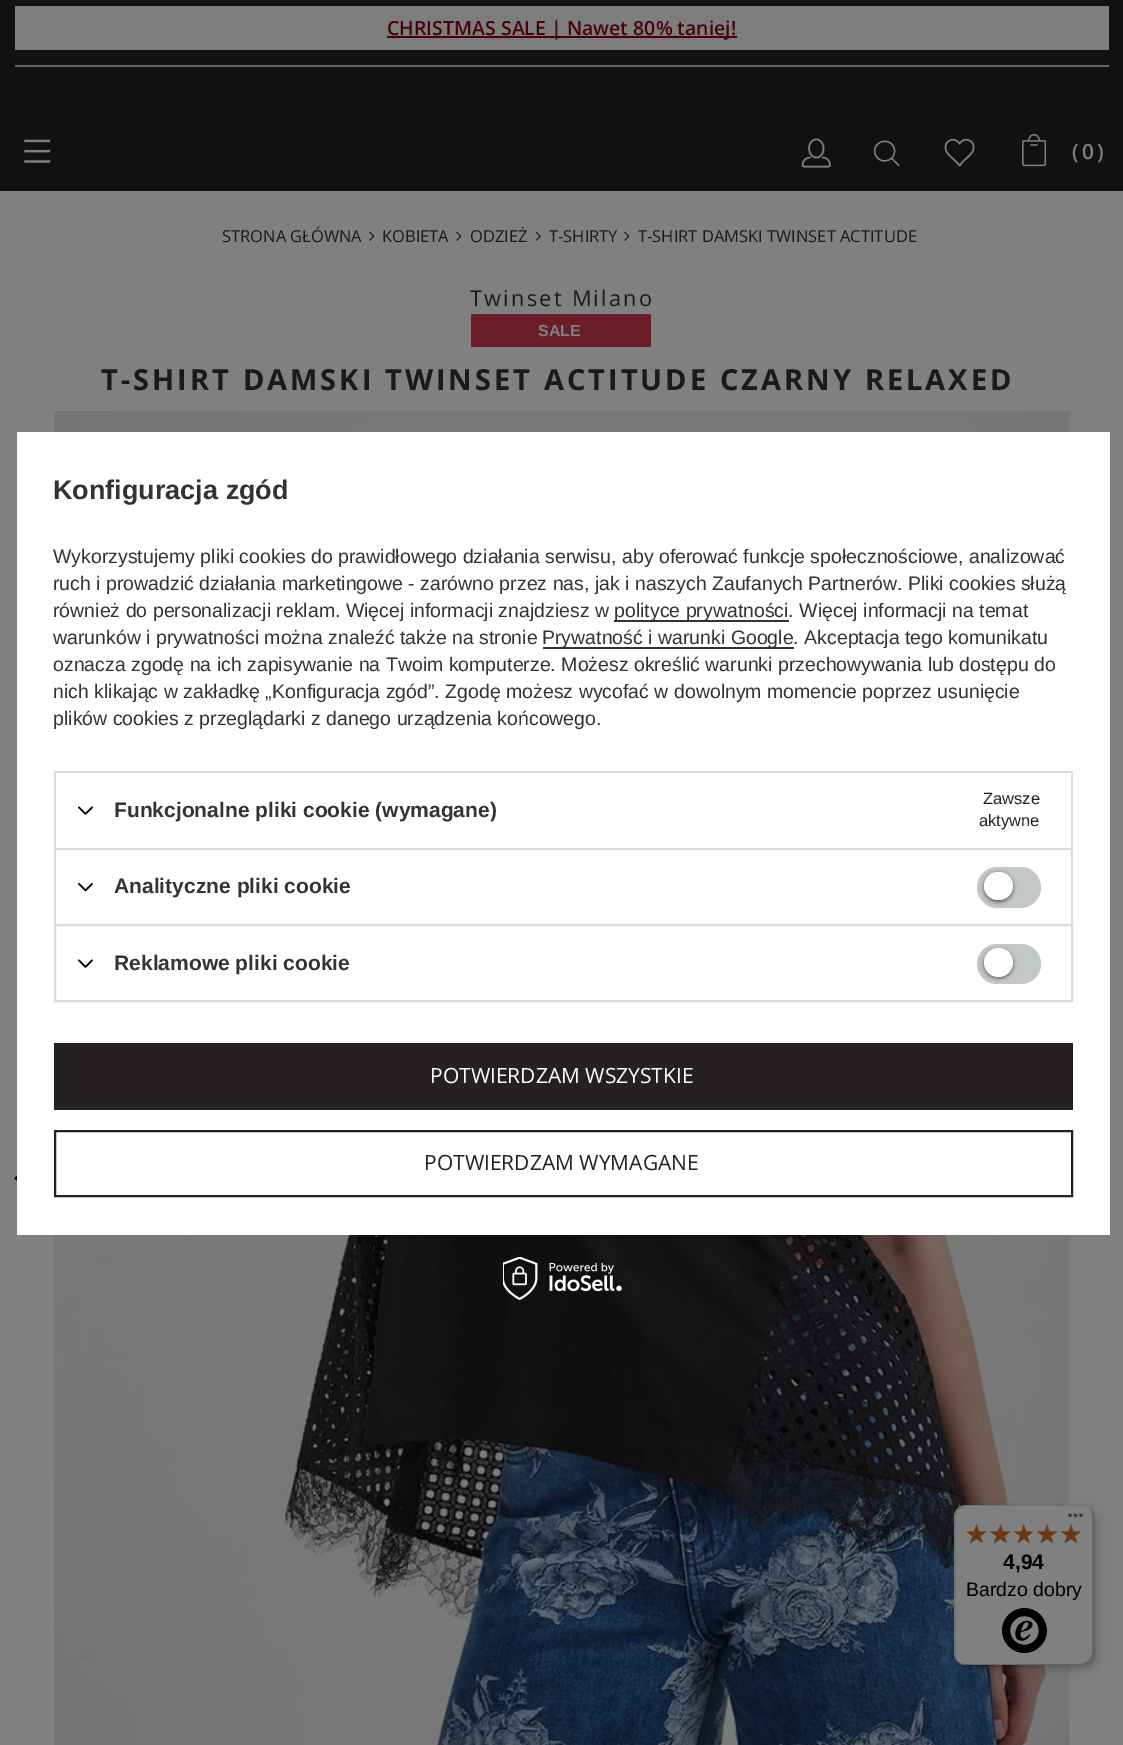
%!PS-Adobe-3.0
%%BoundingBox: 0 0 1123 1745
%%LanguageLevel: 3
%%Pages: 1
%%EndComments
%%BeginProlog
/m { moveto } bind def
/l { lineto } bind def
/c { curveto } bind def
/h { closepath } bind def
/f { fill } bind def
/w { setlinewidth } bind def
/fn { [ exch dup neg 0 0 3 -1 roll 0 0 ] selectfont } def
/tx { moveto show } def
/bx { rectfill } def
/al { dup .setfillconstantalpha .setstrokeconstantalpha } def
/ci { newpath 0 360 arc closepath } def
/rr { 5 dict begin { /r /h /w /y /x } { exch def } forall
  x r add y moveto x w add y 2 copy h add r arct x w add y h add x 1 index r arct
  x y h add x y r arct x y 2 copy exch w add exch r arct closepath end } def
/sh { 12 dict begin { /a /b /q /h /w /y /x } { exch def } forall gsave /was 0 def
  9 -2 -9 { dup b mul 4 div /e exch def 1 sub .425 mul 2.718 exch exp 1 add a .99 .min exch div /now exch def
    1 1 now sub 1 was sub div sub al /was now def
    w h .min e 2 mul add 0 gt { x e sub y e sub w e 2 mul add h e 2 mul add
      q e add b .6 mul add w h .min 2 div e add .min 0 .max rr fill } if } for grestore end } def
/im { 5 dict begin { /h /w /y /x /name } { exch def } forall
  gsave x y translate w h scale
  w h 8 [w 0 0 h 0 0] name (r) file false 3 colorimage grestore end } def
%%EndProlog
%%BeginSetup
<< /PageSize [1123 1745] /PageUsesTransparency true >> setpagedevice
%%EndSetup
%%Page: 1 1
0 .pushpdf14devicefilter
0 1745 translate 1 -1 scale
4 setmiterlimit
0.502 setgray
0 0 1123 1745 bx
0.075 0.063 0.067 setrgbcolor
0 0 1123 191 bx
0.384 0.392 0.392 setrgbcolor
15 65 1094 2 bx
0.49 setgray
15 6 1094 44 bx
0.282 0.016 0.016 setrgbcolor
387 36 350 2 bx
/OpenSans-SemiBold 19.5 fn
(CHRISTMAS SALE | Nawet 80% taniej!) 387 35 tx
(image0.raw) 24 139 27 24 im
(image1.raw) 801 138 30 30 im
(image2.raw) 873 140 27 27 im
(image3.raw) 944 138 31 29 im
(image4.raw) 1022 134 25 33 im
/OpenSans-SemiBold 21 fn
0.502 setgray
1072 159 m 3 0 (\(0\)) ashow
/OpenSans-Regular 16.5 fn
0.102 setgray
(STRONA GŁÓWNA) 222 242 tx
(image5.raw) 369 231 6 10 im
(KOBIETA) 382 242 tx
(image5.raw) 456 231 6 10 im
(ODZIEŻ) 470 242 tx
(image6.raw) 535 231 6 10 im
(T-SHIRTY) 549 242 tx
(image5.raw) 624 231 6 10 im
(T-SHIRT DAMSKI TWINSET ACTITUDE) 638 242 tx
/OpenSans-Regular 21.75 fn
470 306 m 2.25 0 (Twinset Milano) ashow
0.424 0.118 0.149 setrgbcolor
471 314 180 33 bx
/LiberationSans-Bold 16 fn
0.502 setgray
(SALE) 538 336 tx
/OpenSans-Bold 29.05 fn
0.102 setgray
101 390 m 3 0 (T-SHIRT DAMSKI TWINSET ACTITUDE CZARNY RELAXED) ashow
(image7.raw) 14 1175 3 6 im
(image8.raw) 54 411 1016 1334 im
1 setgray
17 432 1093 803 bx
/LiberationSans-Bold 27 fn
0.2 setgray
(Konfiguracja zgód) 53 499 tx
/LiberationSans-Regular 19.5 fn
(Wykorzystujemy pliki cookies do prawidłowego działania serwisu, aby oferować funkcje społecznościowe, analizować) 53 563 tx
(ruch i prowadzić działania marketingowe - zarówno przez nas, jak i naszych Zaufanych Partnerów. Pliki cookies służą) 53 590 tx
(również do personalizacji reklam. Więcej informacji znajdziesz w) 53 617 tx
614 620 175 2 bx
(polityce prywatności. Więcej informacji na temat) 614 617 tx
(warunków i prywatności można znaleźć także na stronie) 53 644 tx
543 647 251 2 bx
(Prywatność i warunki Google. Akceptacja tego komunikatu) 542 644 tx
(oznacza zgodę na ich zapisywanie na Twoim komputerze. Możesz określić warunki przechowywania lub dostępu do) 53 671 tx
(nich klikając w zakładkę „Konfiguracja zgód”. Zgodę możesz wycofać w dowolnym momencie poprzez usunięcie) 53 698 tx
(plików cookies z przeglądarki z danego urządzenia końcowego.) 53 725 tx
0.859 setgray
54 771 1019 2 bx
1071 771 2 77 bx
54 771 2 77 bx
(image9.raw) 78 806 15 9 im
/LiberationSans-Bold 21 fn
0.2 setgray
(Funkcjonalne pliki cookie \(wymagane\)) 114 817 tx
/LiberationSans-Regular 16.5 fn
0.145 0.125 0.129 setrgbcolor
(Zawsze) 983 804 tx
(aktywne) 979 826 tx
0.859 setgray
54 848 1019 2 bx
1071 848 2 76 bx
54 848 2 76 bx
(image10.raw) 78 883 15 9 im
/LiberationSans-Bold 21 fn
0.2 setgray
(Analityczne pliki cookie) 114 893 tx
0.769 0.78 0.784 setrgbcolor
977 867 64 41 20.5 rr f
0 setgray
984 873 29 29 14.5 2 0.56 sh
1 setgray
984 872 29 28 14 rr f
0.859 setgray
2 w
55 925 1017 76 rectstroke
(image9.raw) 78 959 15 9 im
0.2 setgray
(Reklamowe pliki cookie) 114 970 tx
0.769 0.78 0.784 setrgbcolor
977 944 64 40 20 rr f
0 setgray
984 950 29 28 14 2 0.56 sh
1 setgray
998.5 962.5 14.5 ci f
0.145 0.125 0.129 setrgbcolor
54 1043 1019 67 bx
/OpenSans-Regular 21 fn
1 setgray
(POTWIERDZAM WSZYSTKIE) 430 1083 tx
0.145 0.125 0.129 setrgbcolor
55 1131 1017 65 rectstroke
(POTWIERDZAM WYMAGANE) 424 1170 tx
(image11.raw) 503 1257 119 43 im
0 setgray
959 1509 139 161 12 6 0.15 sh
956 1506 139 161 12 1.5 0.15 sh
0.502 setgray
954 1505 140 160 12 rr f
0.1 al
0 setgray
968 1506 m 1083 1506 l 1086 1506 1088 1507 1090 1508 c 1088 1506 1085 1505 1082 1505 c 966 1505 l 959 1505 954 1510 954 1517 c 954 1653 l 954 1658 957 1662 961 1664 c 958 1662 956 1658 956 1654 c 956 1518 l 956 1511 961 1506 968 1506 c h f
0.2 al
959 1662 m 961 1664 963 1665 966 1665 c 1082 1665 l 1089 1665 1094 1660 1094 1653 c 1094 1517 l 1094 1513 1092 1510 1090 1508 c 1091 1510 1092 1512 1092 1515 c 1092 1652 l 1092 1658 1087 1664 1080 1664 c 964 1664 l 962 1664 960 1663 959 1662 c h f
0.098 setgray
958 1662 m 960 1664 963 1665 966 1665 c 1082 1665 l 1089 1665 1094 1660 1094 1653 c 1094 1517 l 1094 1513 1092 1510 1090 1508 c 1092 1510 1093 1513 1093 1516 c 1093 1652 l 1093 1659 1087 1664 1081 1664 c 965 1664 l 962 1664 960 1663 958 1662 c h f
0.3 al
0.502 setgray
957 1661 m 959 1663 962 1665 966 1665 c 1082 1665 l 1089 1665 1094 1660 1094 1653 c 1094 1517 l 1094 1513 1092 1510 1090 1508 c 1092 1510 1093 1513 1093 1516 c 1093 1652 l 1093 1659 1087 1664 1081 1664 c 965 1664 l 962 1664 959 1663 957 1661 c h f
1 al
(image12.raw) 1068 1513 15 5 im
(image13.raw) 966 1524 21 19 im
(image14.raw) 990 1524 21 20 im
(image15.raw) 1014 1524 19 19 im
(image16.raw) 1036 1524 22 20 im
(image17.raw) 1061 1524 20 19 im
(image18.raw) 966 1524 21 19 im
(image19.raw) 990 1524 21 19 im
(image20.raw) 1014 1524 20 19 im
(image21.raw) 1036 1524 22 19 im
(image22.raw) 1060 1524 20 19 im
/LiberationSans-Bold 21 fn
0 setgray
(4,94) 1003 1569 tx
/LiberationSans-Regular 19.5 fn
(Bardzo dobry) 966 1596 tx
(image23.raw) 1002 1608 45 45 im
.poppdf14devicefilter showpage
%%EOF
